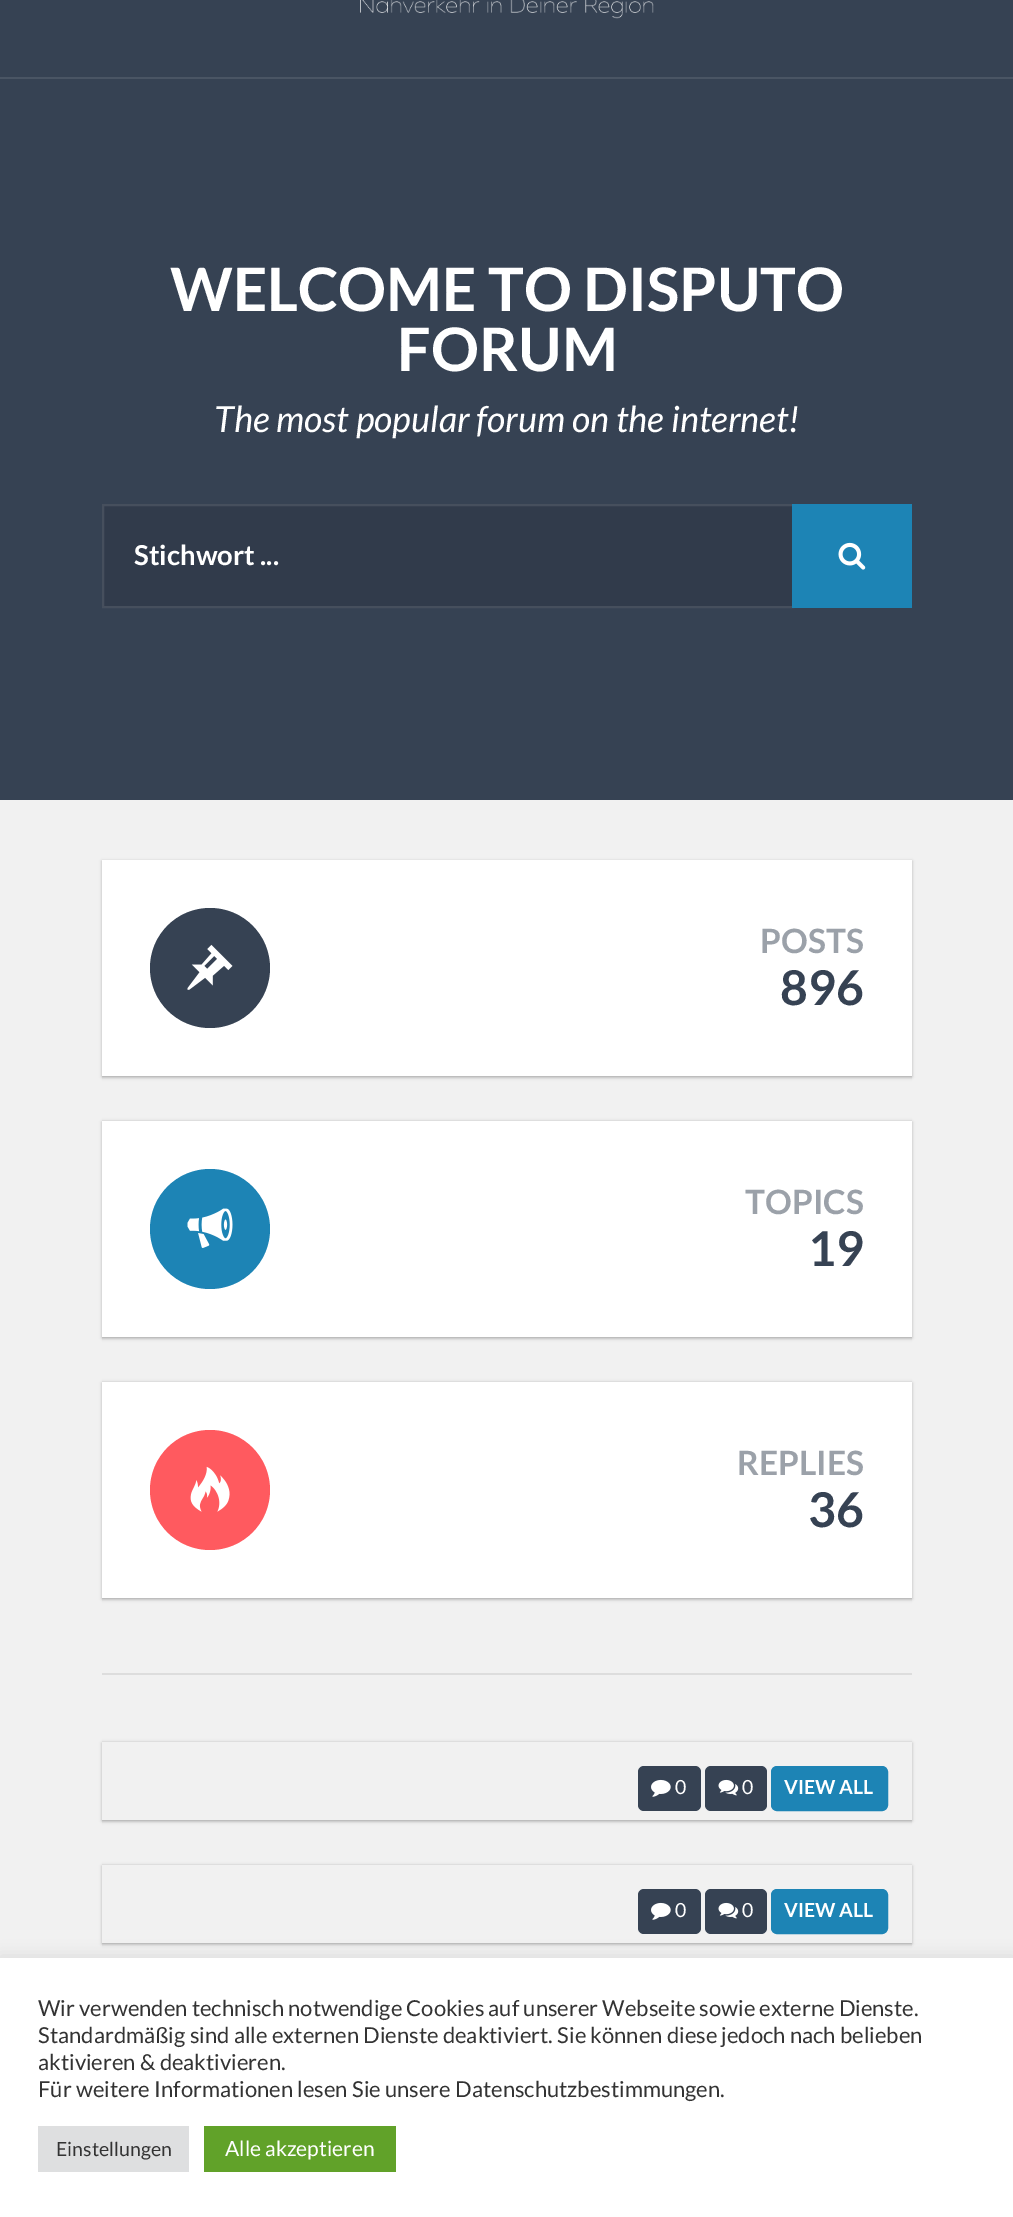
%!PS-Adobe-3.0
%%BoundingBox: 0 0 1013 2217
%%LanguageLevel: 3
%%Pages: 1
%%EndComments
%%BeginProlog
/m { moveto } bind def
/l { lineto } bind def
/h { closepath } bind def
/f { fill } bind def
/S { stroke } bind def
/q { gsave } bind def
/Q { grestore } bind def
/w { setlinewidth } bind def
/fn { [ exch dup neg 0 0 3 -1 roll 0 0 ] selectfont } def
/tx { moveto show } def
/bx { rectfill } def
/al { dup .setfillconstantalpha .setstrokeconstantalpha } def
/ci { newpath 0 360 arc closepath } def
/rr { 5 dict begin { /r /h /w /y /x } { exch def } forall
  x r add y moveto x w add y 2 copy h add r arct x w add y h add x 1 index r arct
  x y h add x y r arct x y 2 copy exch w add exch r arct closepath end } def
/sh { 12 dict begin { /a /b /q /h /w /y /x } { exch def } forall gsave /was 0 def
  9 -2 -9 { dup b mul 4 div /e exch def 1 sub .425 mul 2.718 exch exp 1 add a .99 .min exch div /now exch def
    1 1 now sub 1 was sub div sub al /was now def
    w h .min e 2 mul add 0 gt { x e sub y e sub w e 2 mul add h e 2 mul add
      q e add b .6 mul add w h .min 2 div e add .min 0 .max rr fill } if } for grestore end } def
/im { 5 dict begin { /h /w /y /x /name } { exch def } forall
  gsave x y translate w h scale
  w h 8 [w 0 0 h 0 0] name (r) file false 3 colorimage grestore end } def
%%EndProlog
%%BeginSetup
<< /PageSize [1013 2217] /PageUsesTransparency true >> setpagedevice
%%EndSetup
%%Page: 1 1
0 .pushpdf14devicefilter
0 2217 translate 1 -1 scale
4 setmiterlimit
0.945 setgray
0 0 1013 2217 bx
0.212 0.259 0.325 setrgbcolor
0 0 1013 800 bx
0.29 0.333 0.392 setrgbcolor
0 77 1013 2 bx
(image0.raw) 360 0 294 19 im
/Lato-Bold 60 fn
1 setgray
(WELCOME TO DISPUTO) 170 311 tx
(FORUM) 397 371 tx
/Lato-Italic 36 fn
(The most popular forum on the internet!) 214 432 tx
0.192 0.231 0.294 setrgbcolor
103 505 m 793 505 l 793 607 l 103 607 l h q f Q
0.275 0.31 0.365 setrgbcolor
2 w
S
/Lato-Bold 27.5 fn
1 setgray
(Stichwort ...) 134 565 tx
0.114 0.518 0.71 setrgbcolor
792 504 120 104 bx
(image1.raw) 838 542 28 28 im
0 setgray
102 861 810 216 0 1.5 0.24 sh
q
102 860 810 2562 rectclip
102 861 810 216 0 2 0.12 sh
Q
1 setgray
102 860 810 216 bx
0.212 0.259 0.325 setrgbcolor
210 968 60 ci f
(image2.raw) 187 944 46 46 im
/Lato-Bold 33.5 fn
0.608 0.631 0.663 setrgbcolor
(POSTS) 760 953 tx
/Lato-Bold 48 fn
0.212 0.259 0.325 setrgbcolor
(896) 780 1005 tx
0 setgray
102 1122 810 216 0 1.5 0.24 sh
q
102 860 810 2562 rectclip
102 1122 810 216 0 2 0.12 sh
Q
1 setgray
102 1121 810 216 bx
0.114 0.518 0.71 setrgbcolor
210 1229 60 ci f
(image3.raw) 187 1208 46 40 im
/Lato-Bold 33.5 fn
0.608 0.631 0.663 setrgbcolor
(TOPICS) 745 1214 tx
/Lato-Bold 48 fn
0.212 0.259 0.325 setrgbcolor
(19) 808 1266 tx
0 setgray
102 1383 810 216 0 1.5 0.24 sh
q
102 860 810 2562 rectclip
102 1383 810 216 0 2 0.12 sh
Q
1 setgray
102 1382 810 216 bx
1 0.353 0.373 setrgbcolor
210 1490 60 ci f
(image4.raw) 190 1466 40 46 im
/Lato-Bold 33.5 fn
0.608 0.631 0.663 setrgbcolor
(REPLIES) 737 1475 tx
/Lato-Bold 48 fn
0.212 0.259 0.325 setrgbcolor
(36) 808 1527 tx
0.867 setgray
102 1673 810 2 bx
0 setgray
102 1743 810 78 0 1.5 0.24 sh
q
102 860 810 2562 rectclip
102 1743 810 78 0 2 0.12 sh
Q
0.945 setgray
102 1742 810 78 bx
0.212 0.259 0.325 setrgbcolor
638 1766 63 45 6 rr f
(image5.raw) 651 1779 20 18 im
/Lato-Regular 19.5 fn
1 setgray
(0) 675 1794 tx
0.212 0.259 0.325 setrgbcolor
705 1766 62 45 6 rr f
(image6.raw) 718 1779 21 17 im
1 setgray
(0) 742 1794 tx
0.114 0.518 0.71 setrgbcolor
772 1767 115 43 5 rr q f Q
S
/Lato-Bold 19.5 fn
1 setgray
(VIEW ALL) 784 1794 tx
0 setgray
102 1866 810 78 0 1.5 0.24 sh
q
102 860 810 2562 rectclip
102 1866 810 78 0 2 0.12 sh
Q
0.945 setgray
102 1865 810 78 bx
0.212 0.259 0.325 setrgbcolor
638 1889 63 45 6 rr f
(image5.raw) 651 1902 20 18 im
/Lato-Regular 19.5 fn
1 setgray
(0) 675 1917 tx
0.212 0.259 0.325 setrgbcolor
705 1889 62 45 6 rr f
(image6.raw) 718 1902 21 17 im
1 setgray
(0) 742 1917 tx
0.114 0.518 0.71 setrgbcolor
772 1890 115 43 5 rr q f Q
S
/Lato-Bold 19.5 fn
1 setgray
(VIEW ALL) 784 1917 tx
0.675 0.671 0.671 setrgbcolor
0 1956 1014 260 0 7.5 0.3 sh
1 setgray
0 1958 1013 259 bx
/Lato-Regular 22 fn
0.2 setgray
(Wir verwenden technisch notwendige Cookies auf unserer Webseite sowie externe Dienste.) 38 2016 tx
(Standardmäßig sind alle externen Dienste deaktiviert. Sie können diese jedoch nach belieben) 38 2043 tx
(aktivieren & deaktivieren.) 38 2070 tx
(Für weitere Informationen lesen Sie unsere Datenschutzbestimmungen.) 38 2097 tx
0.871 0.875 0.878 setrgbcolor
38 2126 151 46 bx
/Lato-Regular 19.5 fn
0.2 setgray
(Einstellungen) 56 2156 tx
0.38 0.635 0.161 setrgbcolor
204 2126 192 46 bx
/Lato-Regular 21 fn
1 setgray
(Alle akzeptieren) 225 2156 tx
.poppdf14devicefilter showpage
%%EOF
